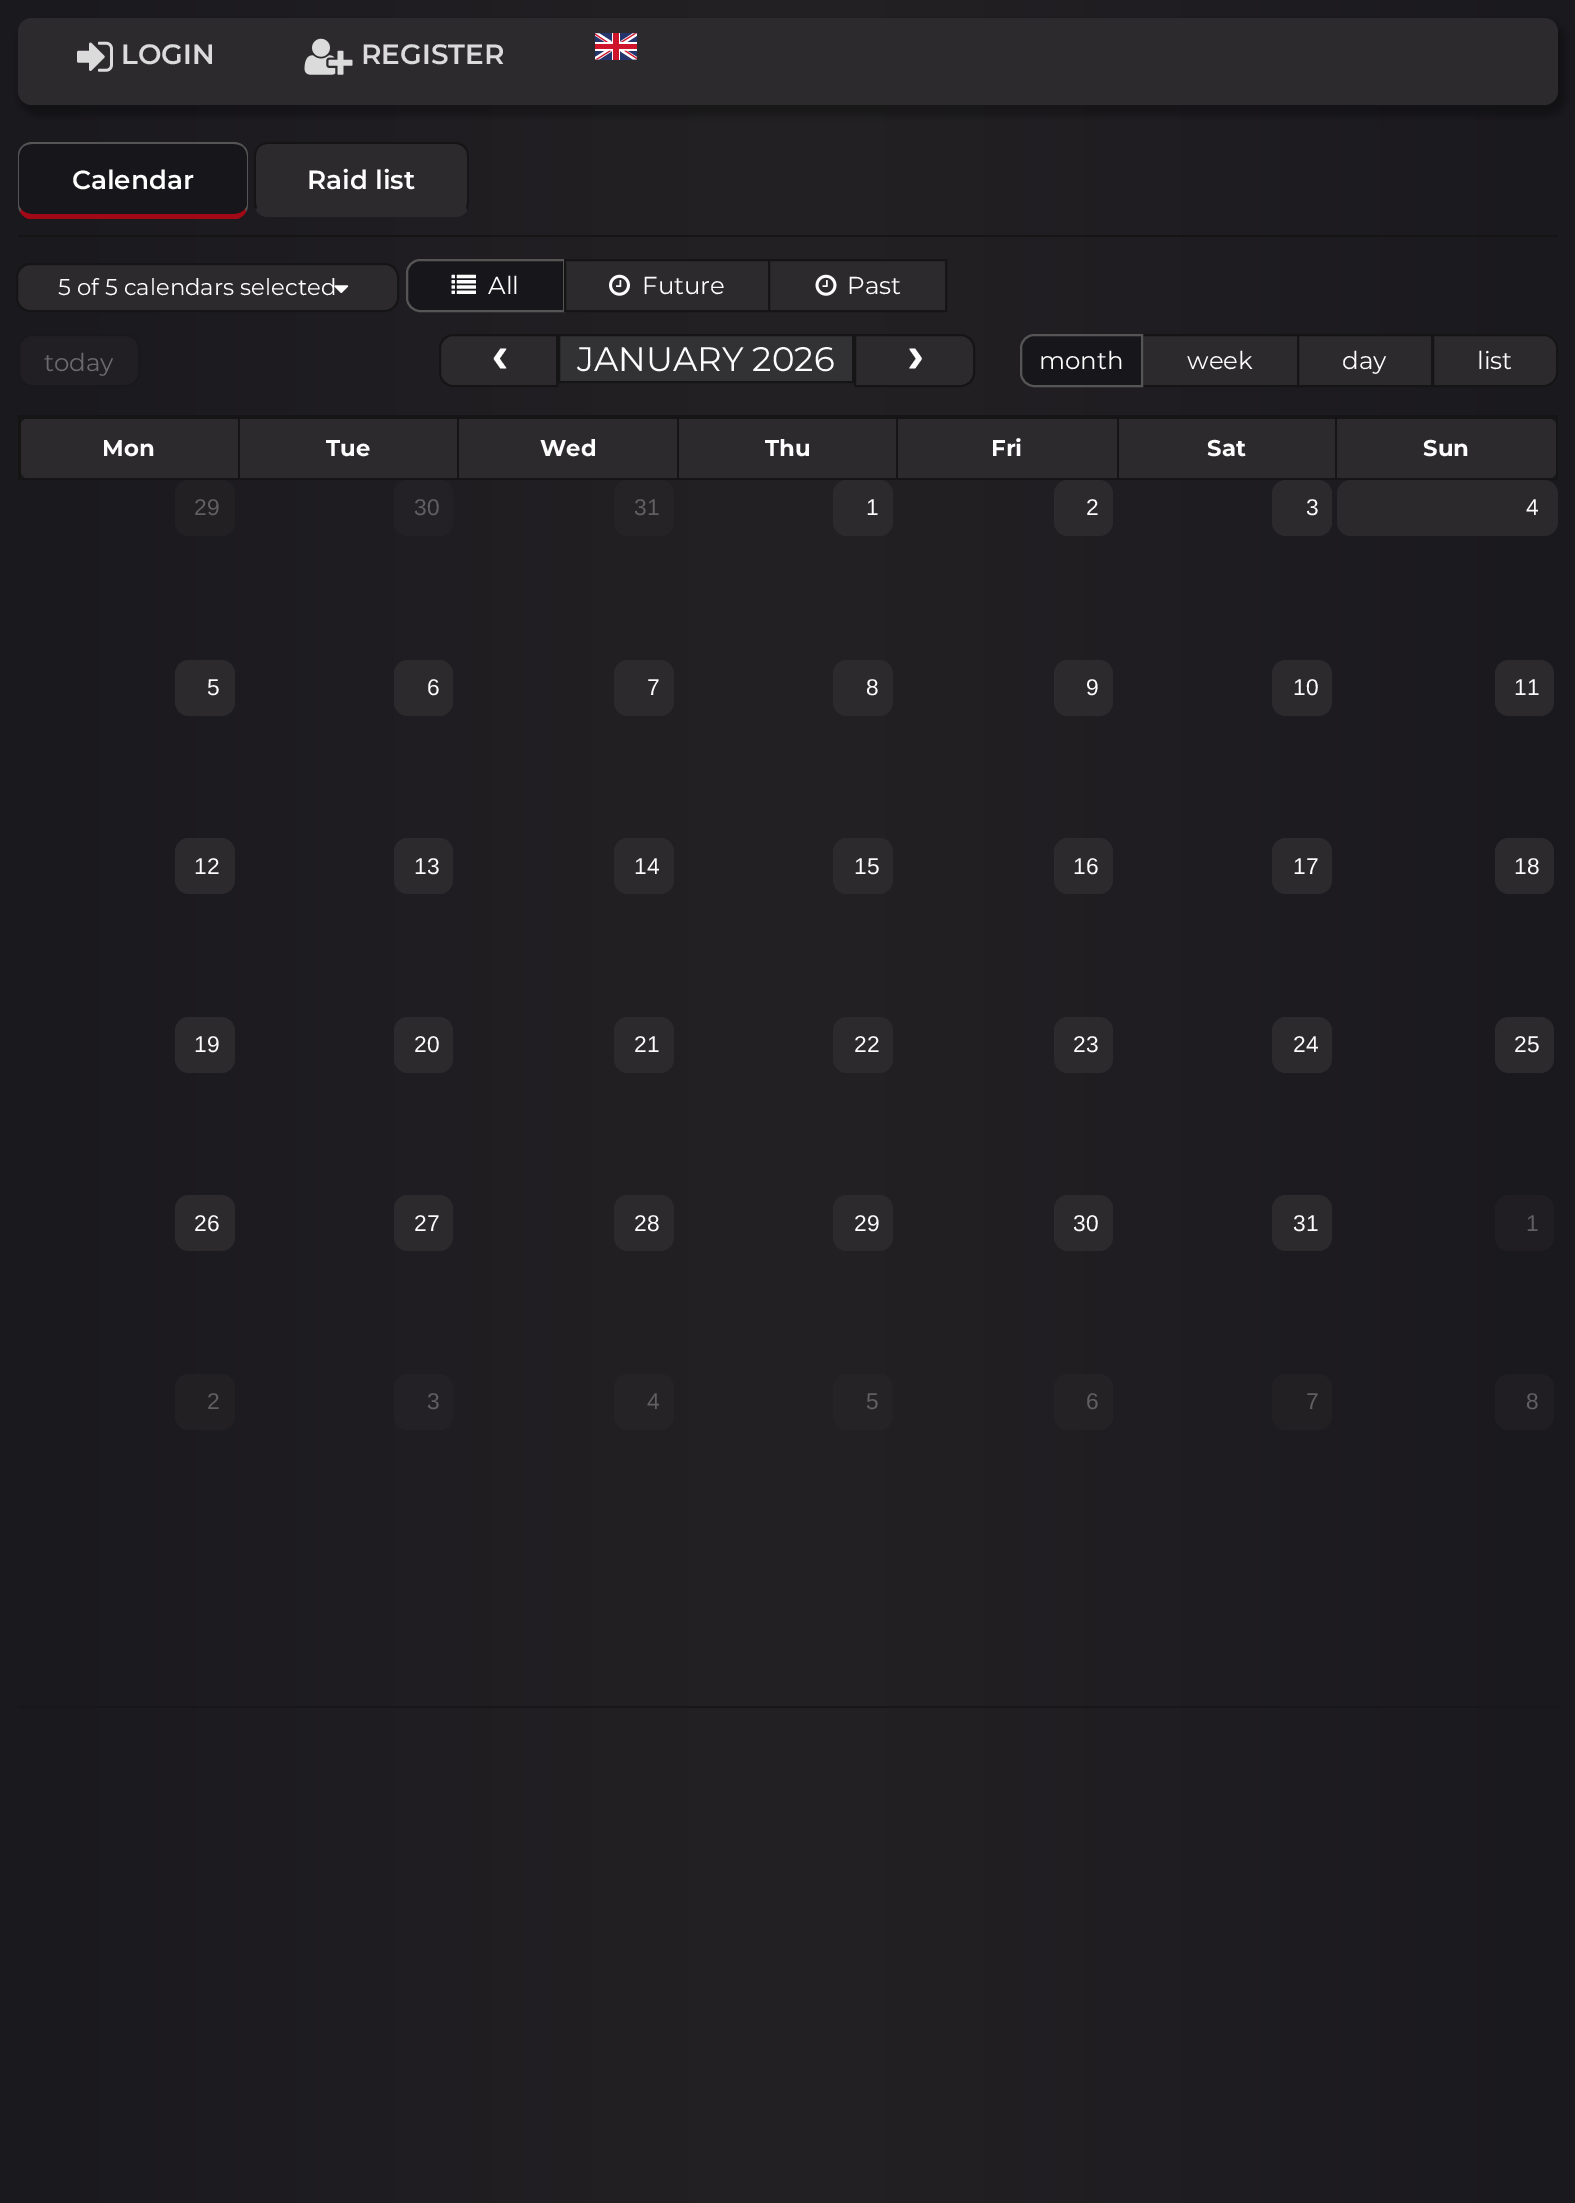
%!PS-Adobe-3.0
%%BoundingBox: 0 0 1575 2203
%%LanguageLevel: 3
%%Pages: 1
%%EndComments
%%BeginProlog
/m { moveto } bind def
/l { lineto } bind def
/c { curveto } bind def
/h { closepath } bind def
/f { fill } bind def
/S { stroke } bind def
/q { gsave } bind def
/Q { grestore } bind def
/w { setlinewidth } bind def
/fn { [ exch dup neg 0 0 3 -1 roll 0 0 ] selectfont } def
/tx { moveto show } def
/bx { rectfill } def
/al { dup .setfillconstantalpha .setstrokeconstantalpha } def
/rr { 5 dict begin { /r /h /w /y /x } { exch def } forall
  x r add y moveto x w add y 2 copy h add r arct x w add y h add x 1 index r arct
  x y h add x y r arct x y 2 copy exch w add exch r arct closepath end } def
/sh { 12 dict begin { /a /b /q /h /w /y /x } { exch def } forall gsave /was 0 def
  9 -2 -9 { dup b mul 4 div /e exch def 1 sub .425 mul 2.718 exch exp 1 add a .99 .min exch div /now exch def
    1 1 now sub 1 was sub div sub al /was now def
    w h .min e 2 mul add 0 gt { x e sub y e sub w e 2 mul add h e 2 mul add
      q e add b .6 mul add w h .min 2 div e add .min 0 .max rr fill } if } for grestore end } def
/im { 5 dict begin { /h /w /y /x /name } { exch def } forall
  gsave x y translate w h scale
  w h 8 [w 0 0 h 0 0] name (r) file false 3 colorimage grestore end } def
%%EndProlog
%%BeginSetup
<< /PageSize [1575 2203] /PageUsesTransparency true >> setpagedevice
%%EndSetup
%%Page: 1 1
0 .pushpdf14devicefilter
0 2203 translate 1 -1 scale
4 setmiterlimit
1 setgray
0 0 1575 2203 bx
q 0 0 m 1575 0 l 1575 2203 l 0 2203 l h clip newpath
<< /ShadingType 2 /ColorSpace /DeviceRGB /Coords [0 1102 1575 1102] /Extend [true true] /Function << /FunctionType 3 /Domain [0 1] /Functions [<< /FunctionType 2 /Domain [0 1] /C0 [0.102 0.098 0.114] /C1 [0.141 0.129 0.141] /N 1 >> << /FunctionType 2 /Domain [0 1] /C0 [0.141 0.129 0.141] /C1 [0.102 0.098 0.114] /N 1 >>] /Bounds [0.5] /Encode [0 1 0 1] >> >> shfill Q
0 setgray
19 21 1547 95 18 4.5 0.3 sh
0.176 0.165 0.176 setrgbcolor
18 18 1540 87 14 rr f
(image0.raw) 77 41 36 31 im
/Montserrat-SemiBold 28 fn
0.859 setgray
(LOGIN) 121 64 tx
(image1.raw) 304 38 49 37 im
(REGISTER) 361 64 tx
(image2.raw) 595 33 42 27 im
0.082 setgray
18 235 1540 2 bx
0.09 0.086 0.102 setrgbcolor
32 144 m 234 144 l 241 144 247 149 247 156 c 247 205 l 247 210 241 214 234 214 c 32 214 l 25 214 19 210 19 205 c 19 156 l 19 149 25 144 32 144 c h f
0.333 setgray
32 142 m 28 142 24 144 22 146 c 23 147 l 25 145 29 144 32 144 c 234 144 l 237 144 241 145 243 147 c 244 146 l 242 144 238 142 234 142 c h f
246 212 m 247 210 248 207 248 205 c 248 156 l 248 152 247 149 244 146 c 243 147 l 245 149 247 152 247 156 c 247 205 l 247 207 246 208 245 209 c h f
0.631 0.035 0.086 setrgbcolor
29 219 m 25 218 22 215 20 212 c 21 209 l 23 212 27 214 32 214 c 234 214 l 239 214 243 212 245 209 c 246 212 l 244 215 241 218 237 219 c h f
0.333 setgray
22 146 m 19 149 18 152 18 156 c 18 205 l 18 207 19 210 20 212 c 21 209 l 20 208 19 207 19 205 c 19 156 l 19 152 21 149 23 147 c h f
/Montserrat-SemiBold 26.25 fn
0.992 setgray
(Calendar) 72 189 tx
0.176 0.165 0.176 setrgbcolor
268 144 m 455 144 l 462 144 467 149 467 156 c 467 203 l 467 208 462 212 455 212 c 268 212 l 261 212 256 208 256 203 c 256 156 l 256 149 261 144 268 144 c h f
0.082 setgray
268 142 m 264 142 260 144 258 146 c 259 147 l 262 145 264 144 268 144 c 455 144 l 458 144 461 145 463 147 c 465 146 l 462 143 459 142 455 142 c h f
465 146 m 467 148 469 152 469 156 c 469 203 l 469 206 468 208 467 211 c 466 207 l 467 206 467 205 467 203 c 467 156 l 467 152 466 149 463 147 c h f
0.176 0.165 0.176 setrgbcolor
268 217 m 455 217 l 460 217 464 215 467 211 c 466 207 l 464 210 460 212 455 212 c 268 212 l 263 212 259 210 257 207 c 256 210 l 258 214 263 217 268 217 c h f
0.082 setgray
258 146 m 256 148 254 152 254 156 c 254 203 l 254 206 255 208 256 210 c 257 207 l 256 206 256 204 256 203 c 256 156 l 256 152 257 150 259 147 c h f
0.992 setgray
(Raid list) 307 189 tx
0.176 0.165 0.176 setrgbcolor
17 264 381 47 13 rr q f Q
0.082 setgray
2 w
S
/Montserrat-Regular 22.75 fn
0.992 setgray
(5 of 5 calendars selected) 58 295 tx
(image3.raw) 334 285 15 9 im
0.09 0.086 0.102 setrgbcolor
420 260 m 564 260 l 564 311 l 420 311 l 413 311 407 305 407 298 c 407 273 l 407 266 413 260 420 260 c h q f Q
0.333 setgray
S
(image4.raw) 451 274 25 20 im
/Montserrat-Regular 24.5 fn
0.992 setgray
(All) 488 294 tx
0.176 0.165 0.176 setrgbcolor
565 260 m 769 260 l 769 311 l 565 311 l h q f Q
0.082 setgray
S
(image5.raw) 609 274 21 22 im
0.992 setgray
(Future) 642 294 tx
0.176 0.165 0.176 setrgbcolor
769 260 m 946 260 l 946 311 l 769 311 l h q f Q
0.082 setgray
S
(image6.raw) 815 274 22 22 im
0.992 setgray
(Past) 847 294 tx
0.129 0.122 0.137 setrgbcolor
19 335 120 51 13 rr q f Q
0.098 0.094 0.106 setrgbcolor
S
0.416 0.412 0.424 setrgbcolor
(today) 44 371 tx
0.176 0.165 0.176 setrgbcolor
453 335 m 557 335 l 557 386 l 453 386 l 446 386 440 380 440 373 c 440 348 l 440 341 446 335 453 335 c h q f Q
0.082 setgray
S
/LiberationMono-Bold 51 fn
0.992 setgray
(‹) 485 372 tx
0.196 0.196 0.208 setrgbcolor
559 335 m 853 335 l 853 382 l 559 382 l h q f Q
0.082 setgray
S
/Montserrat-Regular 34 fn
0.992 setgray
(JANUARY 2026) 577 371 tx
0.176 0.165 0.176 setrgbcolor
855 335 m 961 335 l 968 335 974 341 974 348 c 974 373 l 974 380 968 386 961 386 c 855 386 l h q f Q
0.082 setgray
S
/LiberationMono-Bold 51 fn
0.992 setgray
(›) 900 372 tx
0.176 0.165 0.176 setrgbcolor
1142 335 m 1298 335 l 1298 386 l 1142 386 l h q f Q
0.082 setgray
S
0.09 0.086 0.102 setrgbcolor
1034 335 m 1142 335 l 1142 386 l 1034 386 l 1027 386 1021 380 1021 373 c 1021 348 l 1021 341 1027 335 1034 335 c h q f Q
0.333 setgray
S
/Montserrat-Regular 24.5 fn
0.992 setgray
(month) 1039 369 tx
(week) 1187 369 tx
0.176 0.165 0.176 setrgbcolor
1298 335 m 1432 335 l 1432 386 l 1298 386 l h q f Q
0.082 setgray
S
0.992 setgray
(day) 1342 369 tx
0.176 0.165 0.176 setrgbcolor
1433 335 m 1544 335 l 1551 335 1557 341 1557 348 c 1557 373 l 1557 380 1551 386 1544 386 c 1433 386 l h q f Q
0.082 setgray
S
0.992 setgray
(list) 1477 369 tx
0.176 0.165 0.176 setrgbcolor
19 417 1539 63 14 rr f
0.082 setgray
18 415 1540 2 bx
1556 415 2 65 bx
18 478 1540 2 bx
18 415 2 65 bx
0.176 0.165 0.176 setrgbcolor
19 417 1537 61 14 rr f
19 417 219 61 14 rr f
0.082 setgray
1335 417 223 2 bx
1335 417 2 63 bx
1117 417 220 2 bx
1117 417 2 63 bx
896 417 222 2 bx
896 417 2 63 bx
677 417 221 2 bx
677 417 2 63 bx
457 417 222 2 bx
457 417 2 63 bx
238 417 221 2 bx
238 417 2 63 bx
19 417 221 2 bx
19 417 2 63 bx
/Montserrat-Bold 22.75 fn
0.992 setgray
(Mon) 102 456 tx
(Tue) 326 456 tx
(Wed) 540 456 tx
(Thu) 765 456 tx
(Fri) 991 456 tx
(Sat) 1207 456 tx
(Sun) 1423 456 tx
0.133 0.125 0.137 setrgbcolor
175 480 60 56 14 rr f
/LiberationSans-Regular 22.75 fn
0.376 0.373 0.384 setrgbcolor
(29) 194 515 tx
0.137 0.129 0.145 setrgbcolor
394 480 59 56 14 rr f
0.376 0.373 0.384 setrgbcolor
(30) 414 515 tx
0.145 0.137 0.149 setrgbcolor
614 480 60 56 14 rr f
0.376 0.373 0.384 setrgbcolor
(31) 634 515 tx
0.176 0.165 0.176 setrgbcolor
833 480 60 56 14 rr f
0.992 setgray
(1) 866 515 tx
0.176 0.165 0.176 setrgbcolor
1054 480 59 56 14 rr f
0.992 setgray
(2) 1086 515 tx
0.176 0.165 0.176 setrgbcolor
1272 480 60 56 14 rr f
0.992 setgray
(3) 1306 515 tx
0.92 al
0.176 0.165 0.176 setrgbcolor
1337 480 221 56 14 rr f
1 al
0.992 setgray
(4) 1526 515 tx
0.176 0.165 0.176 setrgbcolor
175 660 60 56 14 rr f
0.992 setgray
(5) 207 695 tx
0.176 0.165 0.176 setrgbcolor
394 660 59 56 14 rr f
0.992 setgray
(6) 427 695 tx
0.176 0.165 0.176 setrgbcolor
614 660 60 56 14 rr f
0.992 setgray
(7) 647 695 tx
0.176 0.165 0.176 setrgbcolor
833 660 60 56 14 rr f
0.992 setgray
(8) 866 695 tx
0.176 0.165 0.176 setrgbcolor
1054 660 59 56 14 rr f
0.992 setgray
(9) 1086 695 tx
0.176 0.165 0.176 setrgbcolor
1272 660 60 56 14 rr f
0.992 setgray
(10) 1293 695 tx
0.176 0.165 0.176 setrgbcolor
1495 660 59 56 14 rr f
0.992 setgray
(11) 1514 695 tx
0.176 0.165 0.176 setrgbcolor
175 838 60 56 14 rr f
0.992 setgray
(12) 194 874 tx
0.176 0.165 0.176 setrgbcolor
394 838 59 56 14 rr f
0.992 setgray
(13) 414 874 tx
0.176 0.165 0.176 setrgbcolor
614 838 60 56 14 rr f
0.992 setgray
(14) 634 874 tx
0.176 0.165 0.176 setrgbcolor
833 838 60 56 14 rr f
0.992 setgray
(15) 854 874 tx
0.176 0.165 0.176 setrgbcolor
1054 838 59 56 14 rr f
0.992 setgray
(16) 1073 874 tx
0.176 0.165 0.176 setrgbcolor
1272 838 60 56 14 rr f
0.992 setgray
(17) 1293 874 tx
0.176 0.165 0.176 setrgbcolor
1495 838 59 56 14 rr f
0.992 setgray
(18) 1514 874 tx
0.176 0.165 0.176 setrgbcolor
175 1017 60 56 14 rr f
0.992 setgray
(19) 194 1052 tx
0.176 0.165 0.176 setrgbcolor
394 1017 59 56 14 rr f
0.992 setgray
(20) 414 1052 tx
0.176 0.165 0.176 setrgbcolor
614 1017 60 56 14 rr f
0.992 setgray
(21) 634 1052 tx
0.176 0.165 0.176 setrgbcolor
833 1017 60 56 14 rr f
0.992 setgray
(22) 854 1052 tx
0.176 0.165 0.176 setrgbcolor
1054 1017 59 56 14 rr f
0.992 setgray
(23) 1073 1052 tx
0.176 0.165 0.176 setrgbcolor
1272 1017 60 56 14 rr f
0.992 setgray
(24) 1293 1052 tx
0.176 0.165 0.176 setrgbcolor
1495 1017 59 56 14 rr f
0.992 setgray
(25) 1514 1052 tx
0.176 0.165 0.176 setrgbcolor
175 1195 60 56 14 rr f
0.992 setgray
(26) 194 1231 tx
0.176 0.165 0.176 setrgbcolor
394 1195 59 56 14 rr f
0.992 setgray
(27) 414 1231 tx
0.176 0.165 0.176 setrgbcolor
614 1195 60 56 14 rr f
0.992 setgray
(28) 634 1231 tx
0.176 0.165 0.176 setrgbcolor
833 1195 60 56 14 rr f
0.992 setgray
(29) 854 1231 tx
0.176 0.165 0.176 setrgbcolor
1054 1195 59 56 14 rr f
0.992 setgray
(30) 1073 1231 tx
0.176 0.165 0.176 setrgbcolor
1272 1195 60 56 14 rr f
0.992 setgray
(31) 1293 1231 tx
0.125 0.118 0.133 setrgbcolor
1495 1195 59 56 14 rr f
0.376 0.373 0.384 setrgbcolor
(1) 1526 1231 tx
0.133 0.125 0.137 setrgbcolor
175 1374 60 56 14 rr f
0.376 0.373 0.384 setrgbcolor
(2) 207 1409 tx
0.137 0.129 0.145 setrgbcolor
394 1374 59 56 14 rr f
0.376 0.373 0.384 setrgbcolor
(3) 427 1409 tx
0.145 0.137 0.149 setrgbcolor
614 1374 60 56 14 rr f
0.376 0.373 0.384 setrgbcolor
(4) 647 1409 tx
0.149 0.137 0.149 setrgbcolor
833 1374 60 56 14 rr f
0.376 0.373 0.384 setrgbcolor
(5) 866 1409 tx
0.141 0.133 0.145 setrgbcolor
1054 1374 59 56 14 rr f
0.376 0.373 0.384 setrgbcolor
(6) 1086 1409 tx
0.133 0.125 0.137 setrgbcolor
1272 1374 60 56 14 rr f
0.376 0.373 0.384 setrgbcolor
(7) 1306 1409 tx
0.125 0.118 0.133 setrgbcolor
1495 1374 59 56 14 rr f
0.376 0.373 0.384 setrgbcolor
(8) 1526 1409 tx
0.09 0.09 0.098 setrgbcolor
18 1706 1540 2 bx
.poppdf14devicefilter showpage
%%EOF
